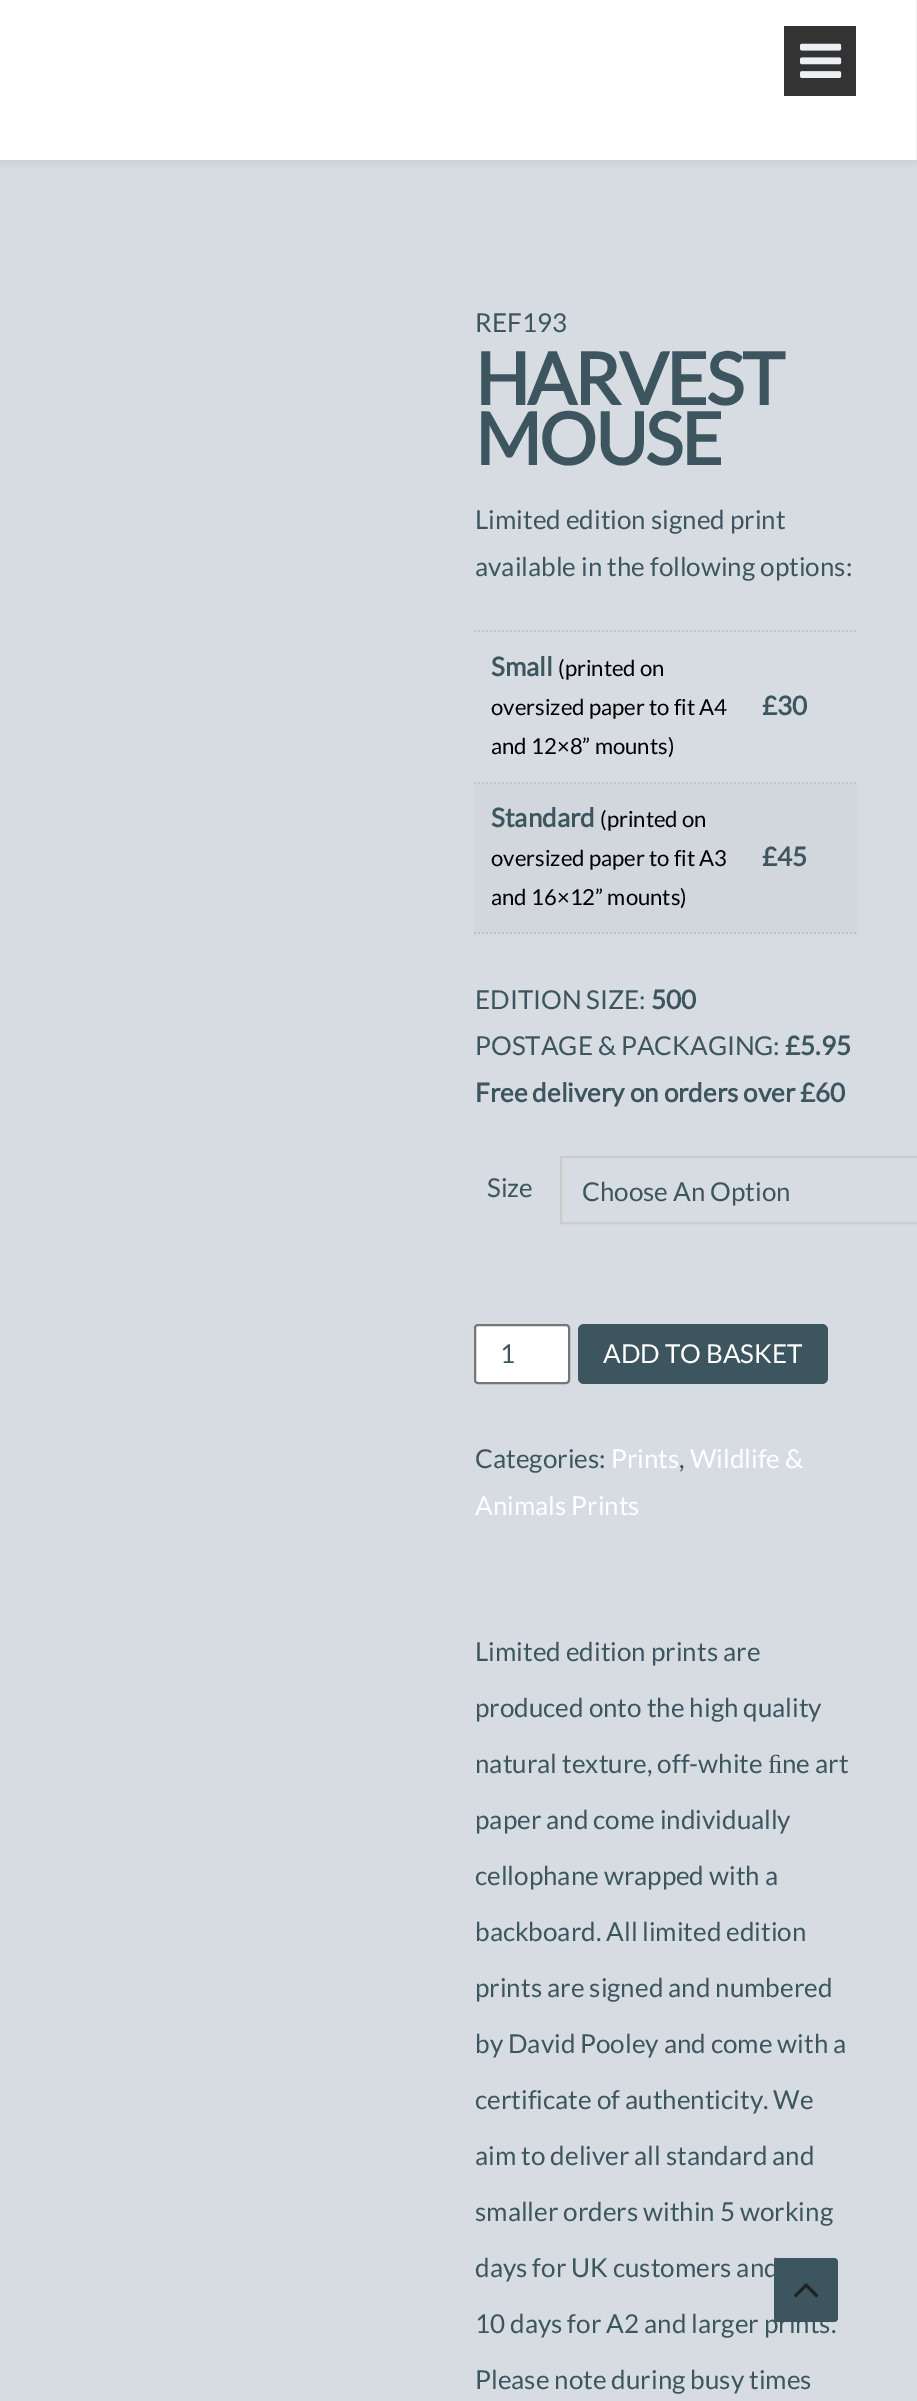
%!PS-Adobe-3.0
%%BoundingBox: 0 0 917 2401
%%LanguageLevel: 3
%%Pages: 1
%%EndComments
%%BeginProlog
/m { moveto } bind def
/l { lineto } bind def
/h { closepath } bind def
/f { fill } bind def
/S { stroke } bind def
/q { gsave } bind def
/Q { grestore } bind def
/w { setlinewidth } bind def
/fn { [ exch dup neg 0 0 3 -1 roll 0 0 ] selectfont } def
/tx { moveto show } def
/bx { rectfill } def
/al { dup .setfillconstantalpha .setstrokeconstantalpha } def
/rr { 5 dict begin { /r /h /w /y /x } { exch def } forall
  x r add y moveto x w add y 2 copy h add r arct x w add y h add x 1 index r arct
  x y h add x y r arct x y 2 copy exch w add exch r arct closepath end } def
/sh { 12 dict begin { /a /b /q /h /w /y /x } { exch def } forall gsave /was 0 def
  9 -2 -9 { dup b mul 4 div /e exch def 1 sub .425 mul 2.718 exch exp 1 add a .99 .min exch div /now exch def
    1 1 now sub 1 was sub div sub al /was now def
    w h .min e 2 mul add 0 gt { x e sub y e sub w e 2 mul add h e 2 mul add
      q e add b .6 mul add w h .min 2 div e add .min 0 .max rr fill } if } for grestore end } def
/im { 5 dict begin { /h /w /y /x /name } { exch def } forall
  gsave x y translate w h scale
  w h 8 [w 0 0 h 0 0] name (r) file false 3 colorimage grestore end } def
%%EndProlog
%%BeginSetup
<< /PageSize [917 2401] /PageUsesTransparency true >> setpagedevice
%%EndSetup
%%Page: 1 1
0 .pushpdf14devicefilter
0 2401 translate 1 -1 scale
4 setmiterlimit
1 setgray
0 0 917 2401 bx
0.839 0.863 0.882 setrgbcolor
0 160 917 2241 bx
q
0 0 m 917 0 l 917 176 l 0 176 l h -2 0 m 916 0 l 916 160 l -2 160 l h eoclip newpath
0 setgray
-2 0 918 160 0 5 0.1 sh
Q
0.2 setgray
784 26 72 70 bx
(image0.raw) 800 43 42 35 im
/Lato-Regular 26 fn
0.235 0.333 0.373 setrgbcolor
(REF193) 475 332 tx
/Lato-Bold 72 fn
475 405 m -2 0 (HARVEST) ashow
475 465 m -2 0 (MOUSE) ashow
/Lato-Regular 26 fn
(Limited edition signed print) 475 529 tx
(available in the following options:) 475 576 tx
0.757 0.776 0.796 setrgbcolor
2 w
[2 2] 0 setdash
474 631 m 858 631 l S
474 783 m 762 783 l S
/Lato-Bold 26 fn
0.235 0.333 0.373 setrgbcolor
(Small) 491 676 tx
/Lato-Regular 22.1 fn
0 setgray
(\(printed on) 558 676 tx
(oversized paper to fit A4) 491 715 tx
(and 12×8” mounts\)) 491 754 tx
0.757 0.776 0.796 setrgbcolor
762 783 m 858 783 l S
/Lato-Bold 26 fn
0.235 0.333 0.373 setrgbcolor
(£30) 762 715 tx
0.82 0.843 0.863 setrgbcolor
474 784 384 150 bx
0.737 0.761 0.776 setrgbcolor
474 933 m 762 933 l S
0.235 0.333 0.373 setrgbcolor
(Standard) 491 827 tx
/Lato-Regular 22.1 fn
0 setgray
(\(printed on) 600 827 tx
(oversized paper to fit A3) 491 866 tx
(and 16×12” mounts\)) 491 905 tx
0.737 0.761 0.776 setrgbcolor
762 933 m 858 933 l S
/Lato-Bold 26 fn
0.235 0.333 0.373 setrgbcolor
(£45) 762 866 tx
/Lato-Regular 26 fn
(EDITION SIZE:) 475 1009 tx
/Lato-Bold 26 fn
(500) 651 1009 tx
/Lato-Regular 26 fn
(POSTAGE & PACKAGING:) 475 1055 tx
/Lato-Bold 26 fn
(£5.95) 785 1055 tx
(Free delivery on orders over £60) 475 1102 tx
/Lato-Regular 26 fn
(Size) 487 1197 tx
0.8 setgray
[] 0 setdash
561 1157 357 66 rectstroke
0.235 0.333 0.373 setrgbcolor
(Choose An Option) 582 1201 tx
1 setgray
475 1325 94 58 3 rr q f Q
0.463 setgray
S
0.235 0.333 0.373 setrgbcolor
(1) 500 1363 tx
578 1324 250 60 6 rr f
1 setgray
(ADD TO BASKET) 603 1363 tx
0.235 0.333 0.373 setrgbcolor
(Categories:) 475 1468 tx
1 setgray
(Prints) 611 1468 tx
0.235 0.333 0.373 setrgbcolor
(,) 679 1468 tx
1 setgray
(Wildlife &) 690 1468 tx
(Animals Prints) 475 1515 tx
0.235 0.333 0.373 setrgbcolor
(Limited edition prints are) 475 1661 tx
(produced onto the high quality) 475 1717 tx
(natural texture, off-white) 475 1773 tx
/LiberationSerif-Regular 26 fn
(ﬁ) 768 1773 tx
/Lato-Regular 26 fn
(ne art) 782 1773 tx
(paper and come individually) 475 1829 tx
(cellophane wrapped with a) 475 1885 tx
(backboard. All limited edition) 475 1941 tx
(prints are signed and numbered) 475 1997 tx
(by David Pooley and come with a) 475 2053 tx
(certificate of authenticity. We) 475 2109 tx
(aim to deliver all standard and) 475 2165 tx
(smaller orders within 5 working) 475 2221 tx
(days for UK customers and) 475 2277 tx
(10 days for A2 and larger prints.) 475 2333 tx
(Please note during busy times) 475 2389 tx
774 2258 64 64 4 rr f
(image1.raw) 794 2283 25 15 im
.poppdf14devicefilter showpage
%%EOF
